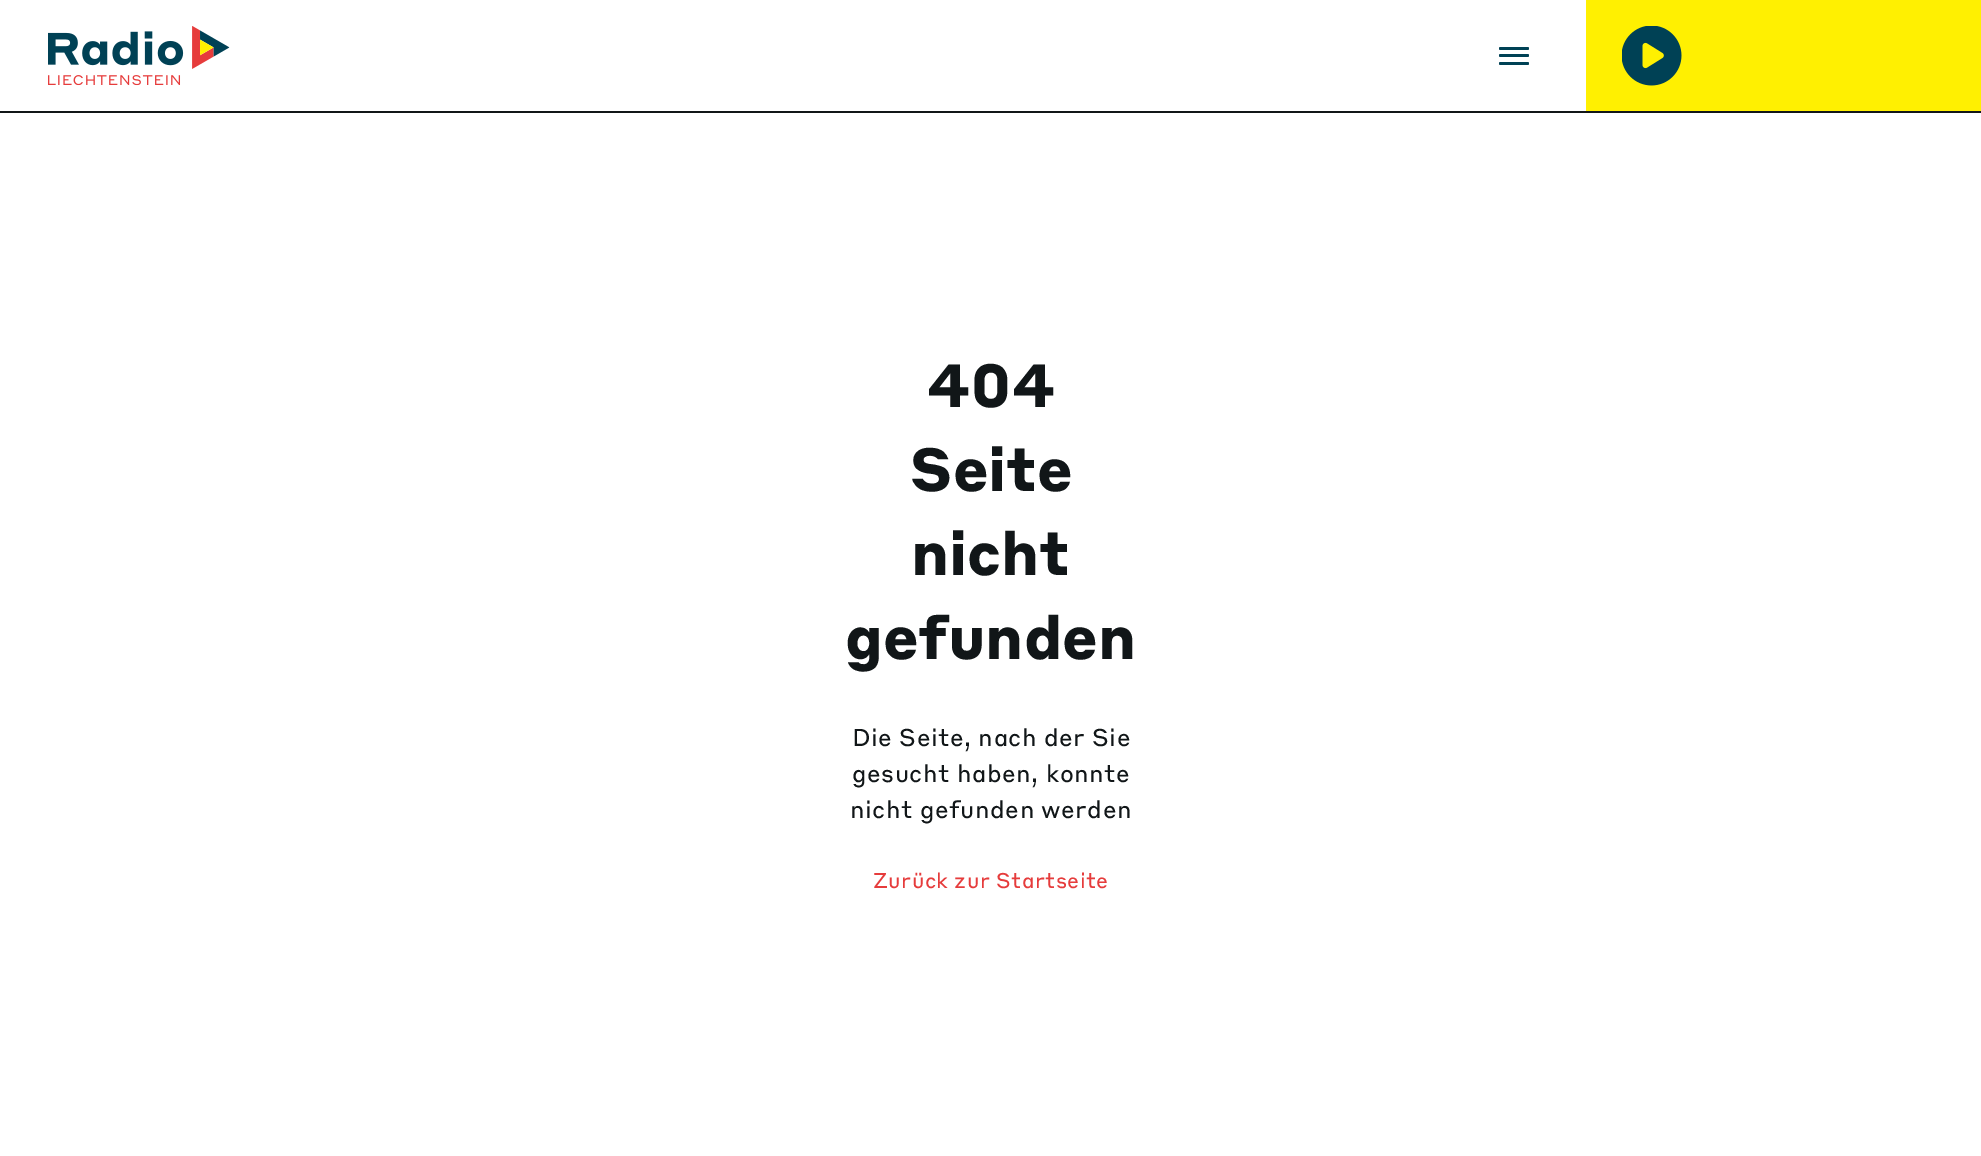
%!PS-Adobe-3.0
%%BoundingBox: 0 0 1981 1156
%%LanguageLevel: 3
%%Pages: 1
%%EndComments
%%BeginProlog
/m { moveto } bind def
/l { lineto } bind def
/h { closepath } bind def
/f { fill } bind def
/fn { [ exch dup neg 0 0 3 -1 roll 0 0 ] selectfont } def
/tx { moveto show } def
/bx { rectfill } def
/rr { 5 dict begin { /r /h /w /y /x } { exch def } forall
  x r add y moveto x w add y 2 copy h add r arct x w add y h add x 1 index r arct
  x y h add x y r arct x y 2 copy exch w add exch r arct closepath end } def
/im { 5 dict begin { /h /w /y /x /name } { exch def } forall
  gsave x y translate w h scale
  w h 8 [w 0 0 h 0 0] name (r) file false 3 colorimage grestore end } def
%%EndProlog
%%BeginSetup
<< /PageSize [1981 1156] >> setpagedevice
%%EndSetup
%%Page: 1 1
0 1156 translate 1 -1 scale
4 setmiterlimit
1 setgray
0 0 1981 1156 bx
0.067 0.086 0.094 setrgbcolor
0 111 m 0 113 l 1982 113 l 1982 2 l 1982 111 l h f
(image0.raw) 48 26 182 60 im
0 0.255 0.333 setrgbcolor
1499 47 30 3 1.5 rr f
1499 54 30 3 1.5 rr f
1499 62 30 3 1.5 rr f
1 0.941 0.004 setrgbcolor
1586 0 395 111 bx
(image1.raw) 1622 26 60 60 im
/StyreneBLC-Bold 60 fn
0.067 0.086 0.094 setrgbcolor
(404) 927 407 tx
(Seite) 910 491 tx
(nicht) 911 575 tx
(gefunden) 845 659 tx
/StyreneBLC-Regular 24 fn
852 746 m 0.5 0 (Die Seite, nach der Sie) ashow
852 782 m 0.5 0 (gesucht haben, konnte) ashow
850 818 m 0.5 0 (nicht gefunden werden) ashow
/StyreneBLC-Regular 21 fn
0.902 0.235 0.235 setrgbcolor
873 888 m 0.4 0 (Zurück zur Startseite) ashow
showpage
%%EOF
